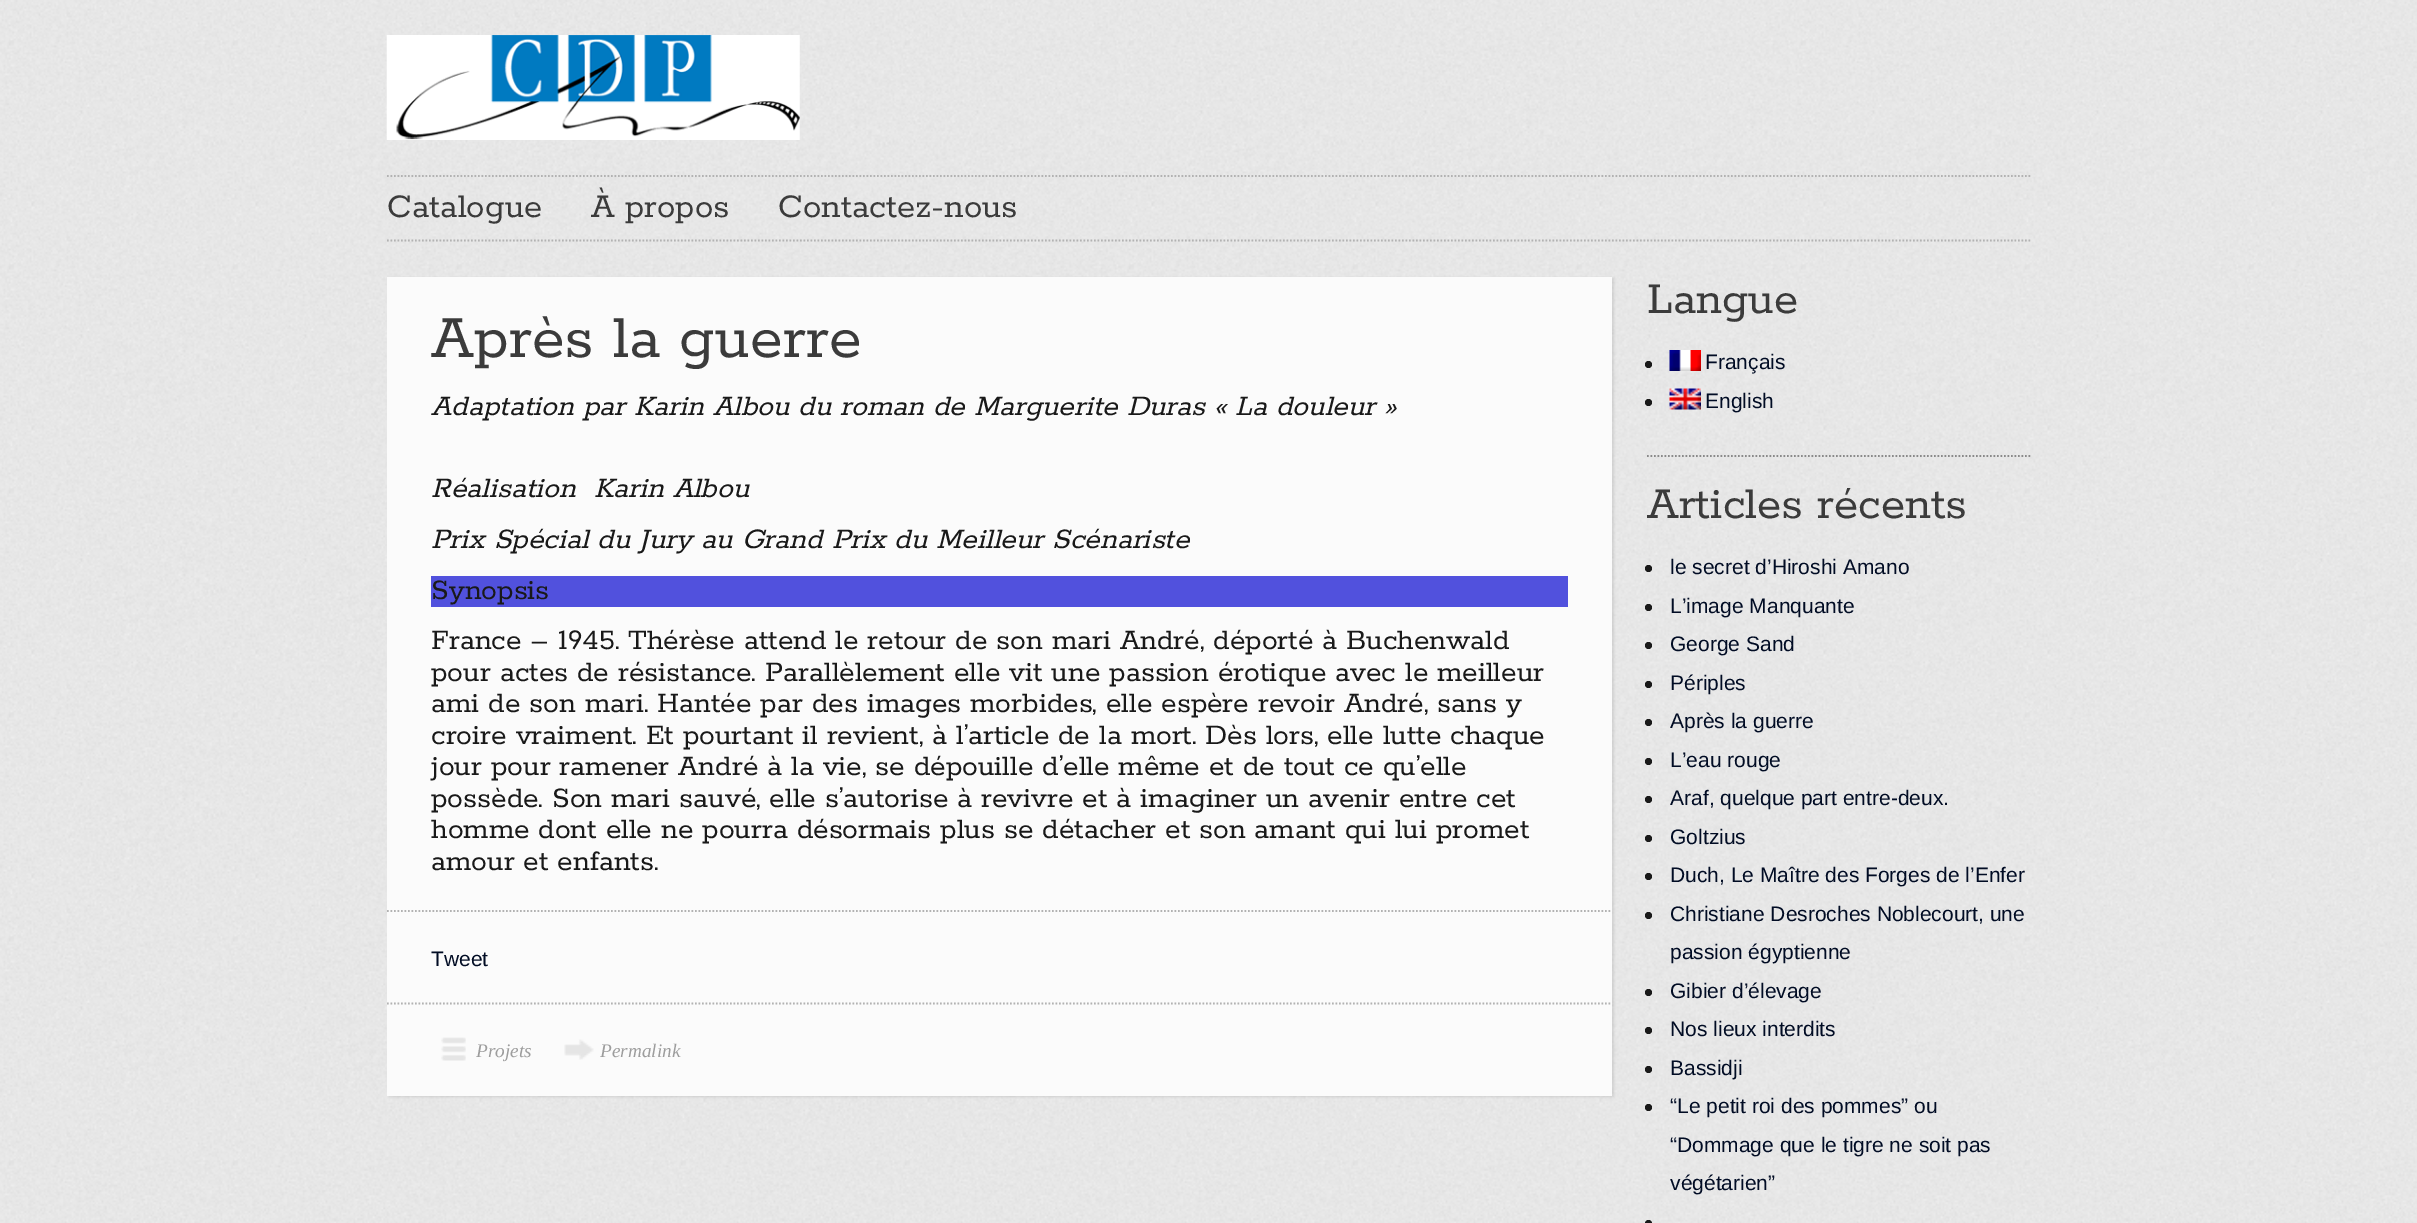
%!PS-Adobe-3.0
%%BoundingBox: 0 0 2417 1223
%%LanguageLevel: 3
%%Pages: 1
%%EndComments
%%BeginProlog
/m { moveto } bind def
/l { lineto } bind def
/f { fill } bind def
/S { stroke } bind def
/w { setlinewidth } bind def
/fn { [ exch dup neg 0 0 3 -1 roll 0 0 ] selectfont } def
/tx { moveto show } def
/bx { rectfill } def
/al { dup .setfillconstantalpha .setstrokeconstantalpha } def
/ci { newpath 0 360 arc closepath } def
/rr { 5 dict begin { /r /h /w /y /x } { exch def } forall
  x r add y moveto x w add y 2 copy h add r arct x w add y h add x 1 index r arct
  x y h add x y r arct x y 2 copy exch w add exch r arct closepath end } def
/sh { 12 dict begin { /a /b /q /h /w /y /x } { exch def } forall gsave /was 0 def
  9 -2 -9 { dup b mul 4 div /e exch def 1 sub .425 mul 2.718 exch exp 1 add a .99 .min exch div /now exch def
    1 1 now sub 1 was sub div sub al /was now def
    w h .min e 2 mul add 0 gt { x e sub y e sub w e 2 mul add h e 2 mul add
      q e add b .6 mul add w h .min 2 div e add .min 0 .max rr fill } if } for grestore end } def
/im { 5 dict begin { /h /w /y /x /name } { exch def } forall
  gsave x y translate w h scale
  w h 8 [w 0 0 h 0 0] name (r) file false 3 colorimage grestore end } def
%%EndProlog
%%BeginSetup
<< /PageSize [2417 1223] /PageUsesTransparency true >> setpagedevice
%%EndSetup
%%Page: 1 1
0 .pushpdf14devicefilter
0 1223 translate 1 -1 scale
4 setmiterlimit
1 setgray
0 0 2417 1223 bx
(image0.raw) 0 0 2417 1223 im
(image1.raw) 386 35 414 105 im
0.698 setgray
1.8 w
[1.75 1.75] 0 setdash
387 176 m 2032 176 l S
387 240.5 m 2032 240.5 l S
/Rokkitt-SemiBold 36.75 fn
0.231 setgray
(Catalogue) 387 217 tx
(À propos) 591 217 tx
(Contactez-nous) 778 217 tx
0 setgray
389 278 1225 819 0 1 0.1 sh
0.984 setgray
387 277 1225 819 bx
/Rokkitt-SemiBold 66.5 fn
0.231 setgray
(Après la guerre) 431 357 tx
/Rokkitt-SemiBoldItalic 31.5 fn
0.098 setgray
(Adaptation par Karin Albou du roman de Marguerite Duras « La douleur ») 431 415 tx
(Réalisation  Karin Albou) 431 497 tx
(Prix Spécial du Jury au Grand Prix du Meilleur Scénariste) 431 548 tx
0.318 0.318 0.867 setrgbcolor
431 576 1137 31 bx
/Rokkitt-SemiBold 31.5 fn
0.098 setgray
(Synopsis) 431 599 tx
(France – 1945. Thérèse attend le retour de son mari André, déporté à Buchenwald) 431 649 tx
(pour actes de résistance. Parallèlement elle vit une passion érotique avec le meilleur) 431 681 tx
(ami de son mari. Hantée par des images morbides, elle espère revoir André, sans y) 431 712 tx
(croire vraiment. Et pourtant il revient, à l’article de la mort. Dès lors, elle lutte chaque) 431 744 tx
(jour pour ramener André à la vie, se dépouille d’elle même et de tout ce qu’elle) 431 775 tx
(possède. Son mari sauvé, elle s’autorise à revivre et à imaginer un avenir entre cet) 431 807 tx
(homme dont elle ne pourra désormais plus se détacher et son amant qui lui promet) 431 838 tx
(amour et enfants.) 431 870 tx
0.698 setgray
387 911 m 1612 911 l S
/LiberationSans-Regular 21 fn
0.004 0.047 0.141 setrgbcolor
(Tweet) 431 966 tx
0.698 setgray
387 1003.5 m 1612 1003.5 l S
(image2.raw) 441 1037 25 24 im
/LiberationSerif-Italic 19.25 fn
0.616 setgray
(Projets) 476 1057 tx
(image3.raw) 564 1039 30 21 im
(Permalink) 600 1057 tx
/Rokkitt-SemiBold 49 fn
0.231 setgray
(Langue) 1647 313 tx
0.098 setgray
1648.5 364.5 3.5 ci f
(image4.raw) 1669 350 32 21 im
/LiberationSans-Regular 21 fn
0.004 0.047 0.141 setrgbcolor
(Français) 1705 369 tx
0.098 setgray
1648.5 402.5 3.5 ci f
(image5.raw) 1669 388 32 22 im
0.004 0.047 0.141 setrgbcolor
(English) 1705 408 tx
0.541 setgray
1647 456 m 2032 456 l S
/Rokkitt-SemiBold 49 fn
0.231 setgray
(Articles récents) 1647 518 tx
0.098 setgray
1648.5 568.5 3.5 ci f
/LiberationSans-Regular 21 fn
0.004 0.047 0.141 setrgbcolor
(le secret d’Hiroshi Amano) 1670 574 tx
0.098 setgray
1648.5 607.5 3.5 ci f
0.004 0.047 0.141 setrgbcolor
(L’image Manquante) 1670 613 tx
0.098 setgray
1648.5 645.5 3.5 ci f
0.004 0.047 0.141 setrgbcolor
(George Sand) 1670 651 tx
0.098 setgray
1648.5 684.5 3.5 ci f
0.004 0.047 0.141 setrgbcolor
(Périples) 1670 690 tx
0.098 setgray
1648.5 722.5 3.5 ci f
0.004 0.047 0.141 setrgbcolor
(Après la guerre) 1670 728 tx
0.098 setgray
1648.5 761.5 3.5 ci f
0.004 0.047 0.141 setrgbcolor
(L’eau rouge) 1670 767 tx
0.098 setgray
1648.5 799.5 3.5 ci f
0.004 0.047 0.141 setrgbcolor
(Araf, quelque part entre-deux.) 1670 805 tx
0.098 setgray
1648.5 838.5 3.5 ci f
0.004 0.047 0.141 setrgbcolor
(Goltzius) 1670 844 tx
0.098 setgray
1648.5 876.5 3.5 ci f
0.004 0.047 0.141 setrgbcolor
(Duch, Le Maître des Forges de l’Enfer) 1670 882 tx
0.098 setgray
1648.5 915.5 3.5 ci f
0.004 0.047 0.141 setrgbcolor
(Christiane Desroches Noblecourt, une) 1670 921 tx
(passion égyptienne) 1670 959 tx
0.098 setgray
1648.5 992.5 3.5 ci f
0.004 0.047 0.141 setrgbcolor
(Gibier d’élevage) 1670 998 tx
0.098 setgray
1648.5 1030.5 3.5 ci f
0.004 0.047 0.141 setrgbcolor
(Nos lieux interdits) 1670 1036 tx
0.098 setgray
1648.5 1069.5 3.5 ci f
0.004 0.047 0.141 setrgbcolor
(Bassidji) 1670 1075 tx
0.098 setgray
1648.5 1107.5 3.5 ci f
0.004 0.047 0.141 setrgbcolor
(“Le petit roi des pommes” ou) 1670 1113 tx
(“Dommage que le tigre ne soit pas) 1670 1152 tx
(végétarien”) 1670 1190 tx
0.098 setgray
1648.5 1223.5 3.5 ci f
.poppdf14devicefilter showpage
%%EOF
